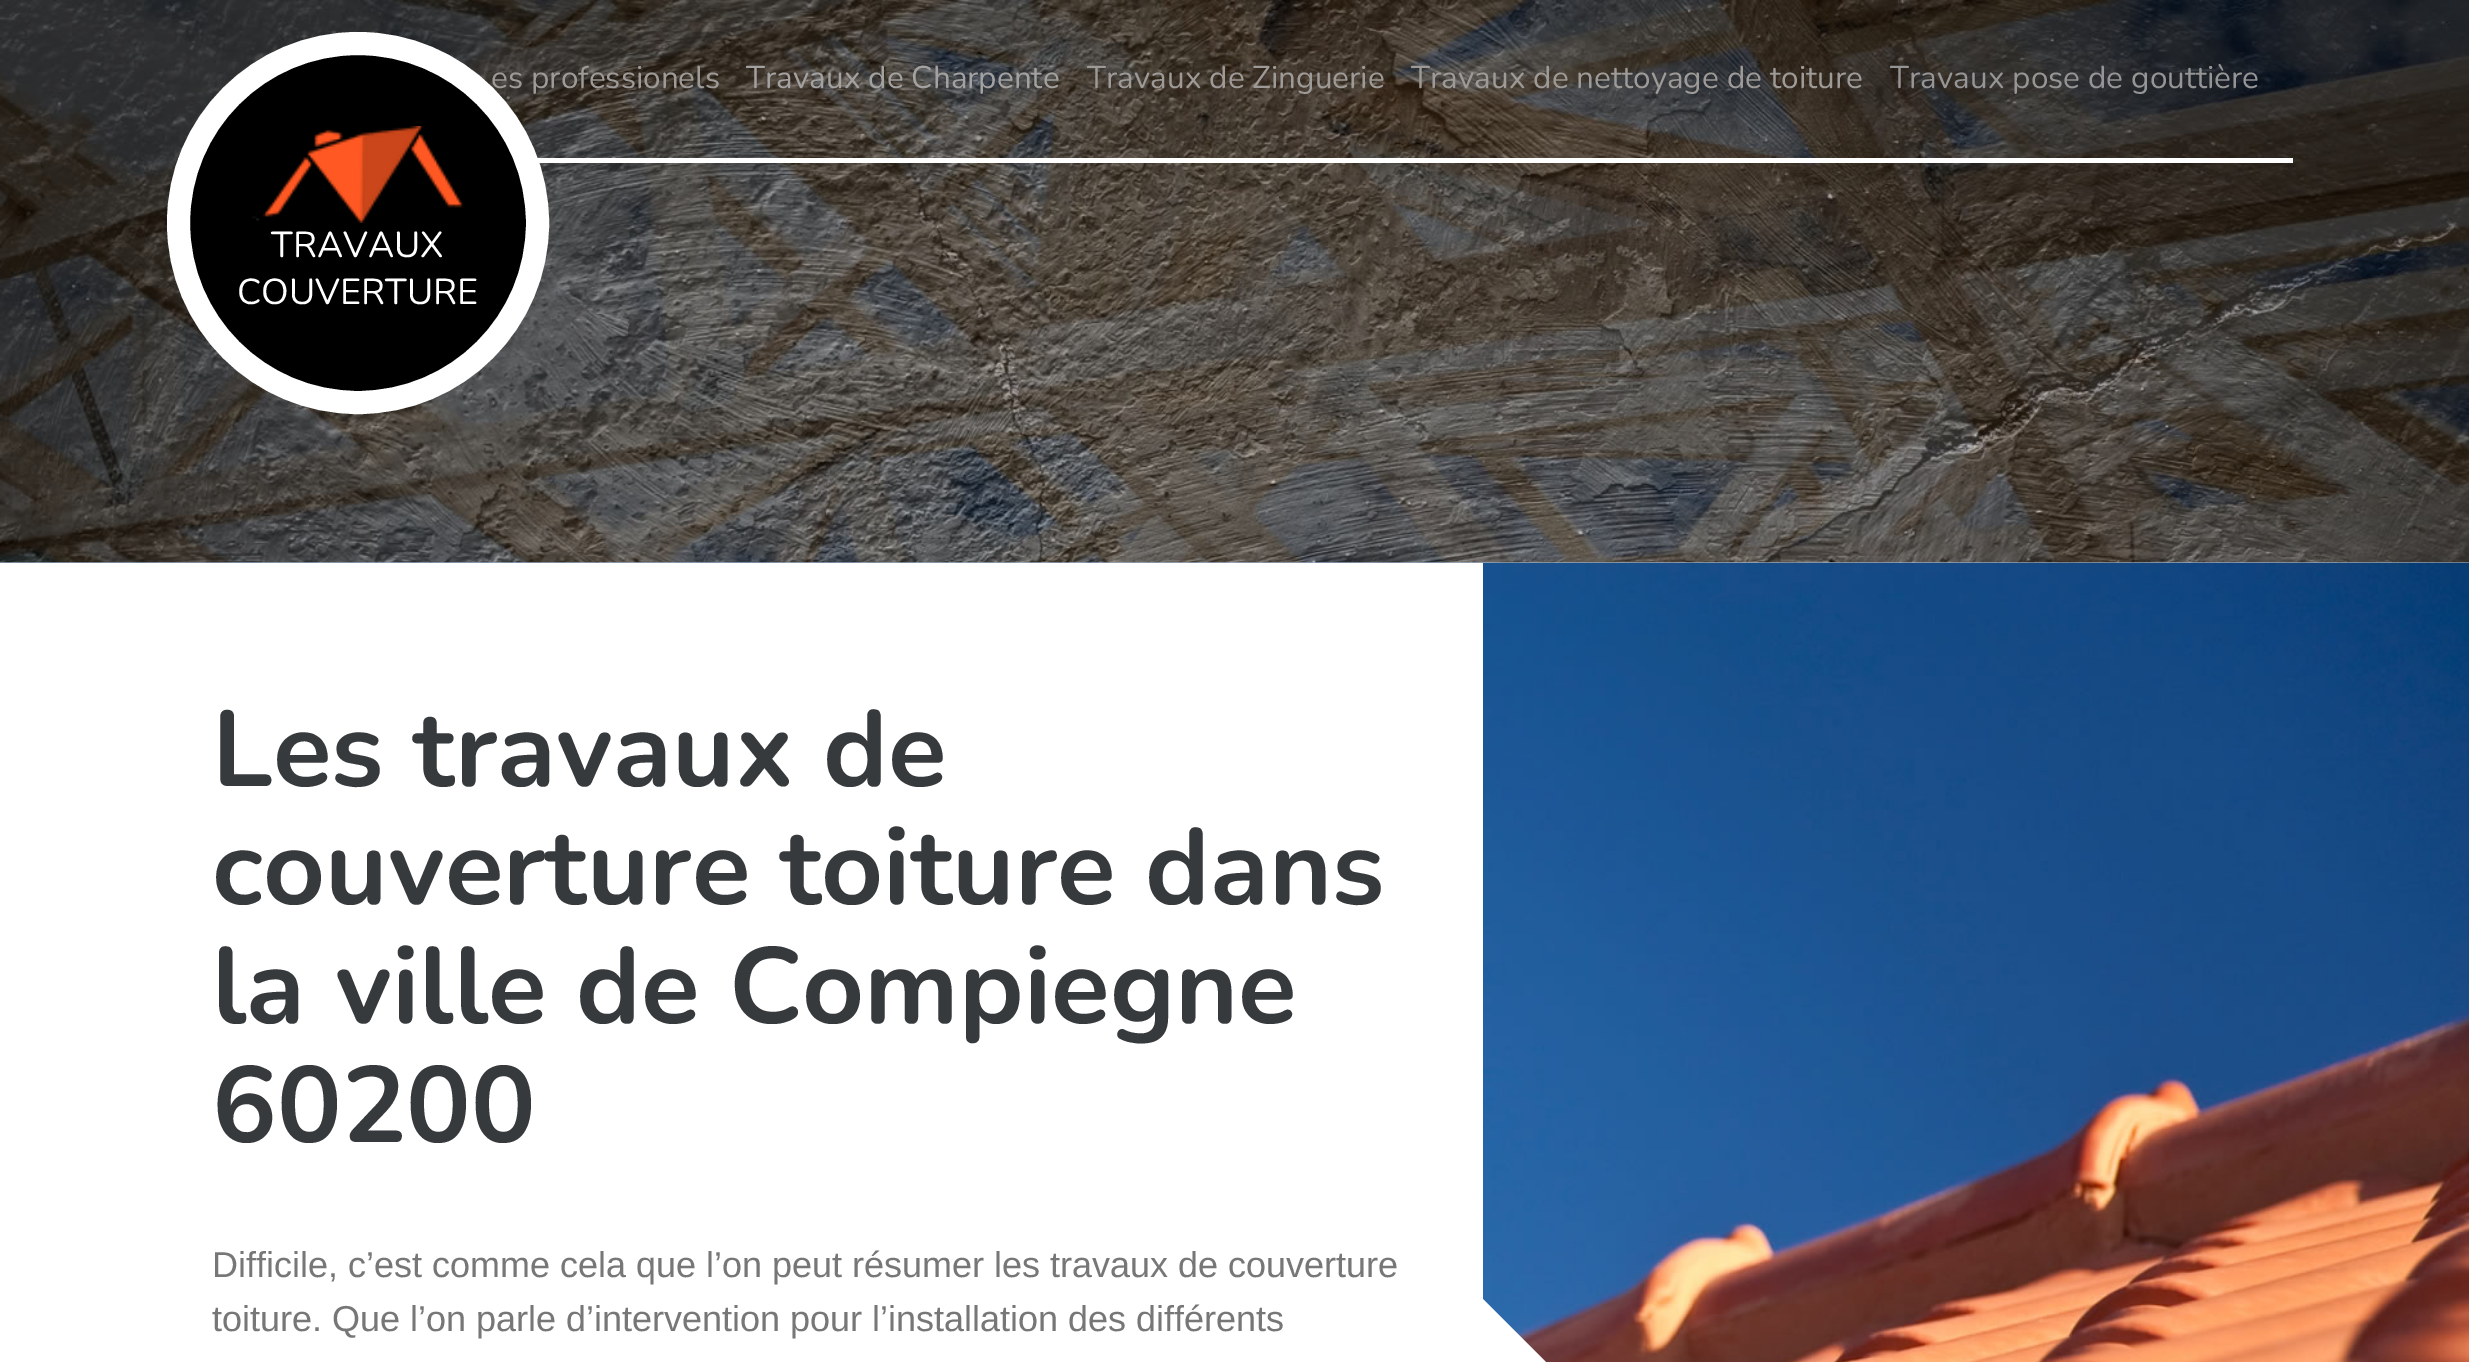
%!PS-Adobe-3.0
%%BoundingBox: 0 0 2469 1362
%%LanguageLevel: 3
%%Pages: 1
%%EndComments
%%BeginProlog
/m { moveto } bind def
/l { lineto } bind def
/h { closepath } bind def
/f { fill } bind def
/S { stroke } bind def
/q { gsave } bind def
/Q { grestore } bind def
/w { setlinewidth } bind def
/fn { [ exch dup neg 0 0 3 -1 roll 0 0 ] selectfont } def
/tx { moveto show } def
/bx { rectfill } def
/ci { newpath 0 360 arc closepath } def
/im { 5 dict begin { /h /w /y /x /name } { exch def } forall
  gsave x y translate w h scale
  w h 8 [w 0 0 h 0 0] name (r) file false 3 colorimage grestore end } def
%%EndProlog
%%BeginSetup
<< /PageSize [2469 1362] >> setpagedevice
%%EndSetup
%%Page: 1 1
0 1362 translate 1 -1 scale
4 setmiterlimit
1 setgray
0 0 2469 1362 bx
(image0.raw) 0 0 2469 563 im
178 158 2115 5 bx
/Nunito-Regular 31.5 fn
0.616 0.604 0.592 setrgbcolor
(es professionels) 491 88 tx
0.639 0.635 0.631 setrgbcolor
(Travaux de Charpente) 746 88 tx
0.616 0.604 0.592 setrgbcolor
(Travaux de Zinguerie) 1087 88 tx
(Travaux de nettoyage de toiture) 1411 88 tx
0.584 0.584 0.588 setrgbcolor
(Travaux pose de gouttière) 1890 88 tx
0 setgray
358 223 179.5 ci q f Q
1 setgray
23 w
S
(image1.raw) 252 126 212 97 im
/Nunito-Regular 36 fn
(TRAVAUX) 271 257 tx
(COUVERTURE) 237 304 tx
(image2.raw) 0 562 2469 800 im
0 563 1483 799 bx
1458 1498 m 1458 1274 l 1570 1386 l h f
/Nunito-Bold 108 fn
0.216 0.227 0.235 setrgbcolor
(Les travaux de) 212 786 tx
(couverture toiture dans) 212 904 tx
(la ville de Compiegne) 212 1023 tx
(60200) 212 1142 tx
/LiberationSans-Regular 36 fn
0.467 setgray
(Difficile, c’est comme cela que l’on peut résumer les travaux de couverture) 212 1277 tx
(toiture. Que l’on parle d’intervention pour l’installation des différents) 212 1331 tx
showpage
%%EOF
